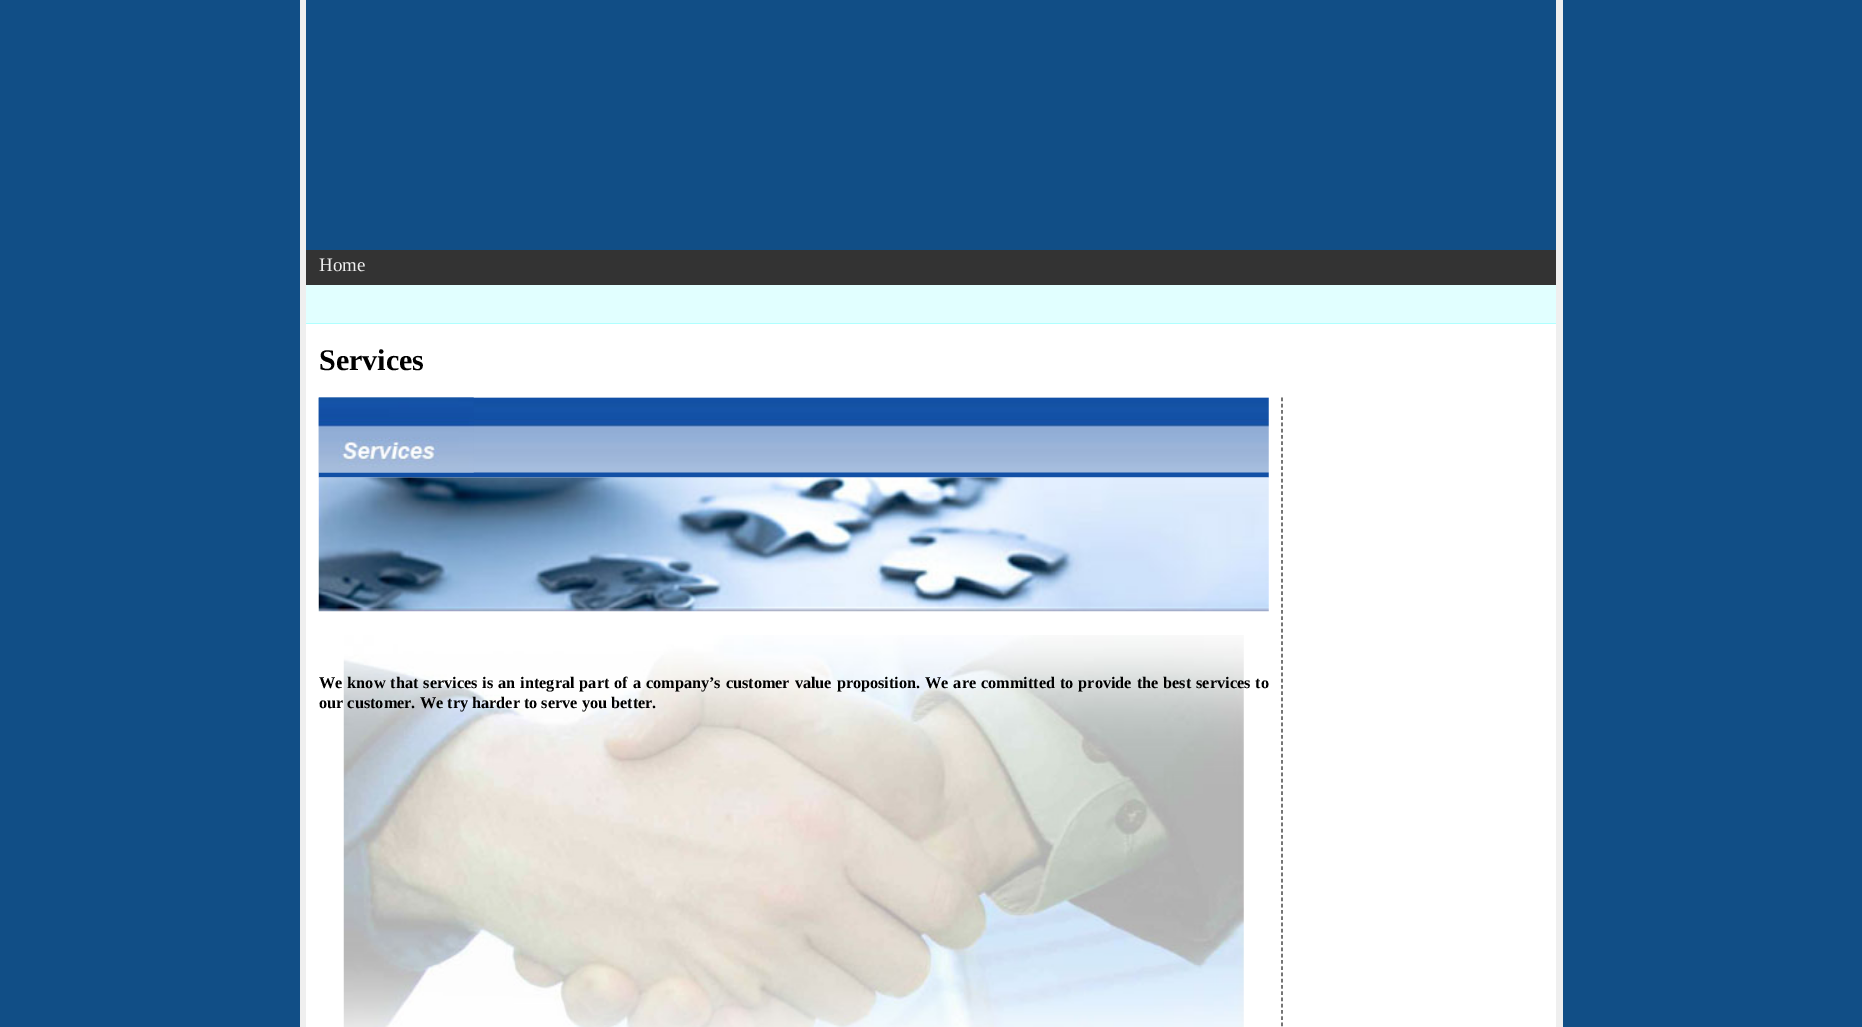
%!PS-Adobe-3.0
%%BoundingBox: 0 0 1862 1027
%%LanguageLevel: 3
%%Pages: 1
%%EndComments
%%BeginProlog
/m { moveto } bind def
/l { lineto } bind def
/S { stroke } bind def
/w { setlinewidth } bind def
/fn { [ exch dup neg 0 0 3 -1 roll 0 0 ] selectfont } def
/tx { moveto show } def
/bx { rectfill } def
/im { 5 dict begin { /h /w /y /x /name } { exch def } forall
  gsave x y translate w h scale
  w h 8 [w 0 0 h 0 0] name (r) file false 3 colorimage grestore end } def
%%EndProlog
%%BeginSetup
<< /PageSize [1862 1027] >> setpagedevice
%%EndSetup
%%Page: 1 1
0 1027 translate 1 -1 scale
4 setmiterlimit
0.067 0.306 0.525 setrgbcolor
0 0 1862 1027 bx
1 setgray
306 324 1250 703 bx
0.937 setgray
1556 0 7 1027 bx
300 0 6 1027 bx
0.2 setgray
306 250 1250 35 bx
/LiberationSerif-Regular 19 fn
0.937 setgray
(Home) 319 271 tx
0.882 1 1 setrgbcolor
306 285 1250 38 bx
0.69 1 1 setrgbcolor
306 323 1250 1 bx
/LiberationSerif-Bold 30 fn
0 setgray
(Services) 319 370 tx
0.267 setgray
1.2 w
[3.75 2.5] 0 setdash
1282 397.5 m 1282 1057.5 l S
(image0.raw) 318 397 951 81 im
(image1.raw) 318 397 156 76 im
(image2.raw) 318 477 951 135 im
(image3.raw) 343 635 901 392 im
/LiberationSerif-Bold 16.25 fn
0 setgray
319 688 m 0.9 0 32 (We know that services is an integral part of a company’s customer value proposition. We are committed to provide the best services to) widthshow
(our customer. We try harder to serve you better.) 319 708 tx
showpage
%%EOF
